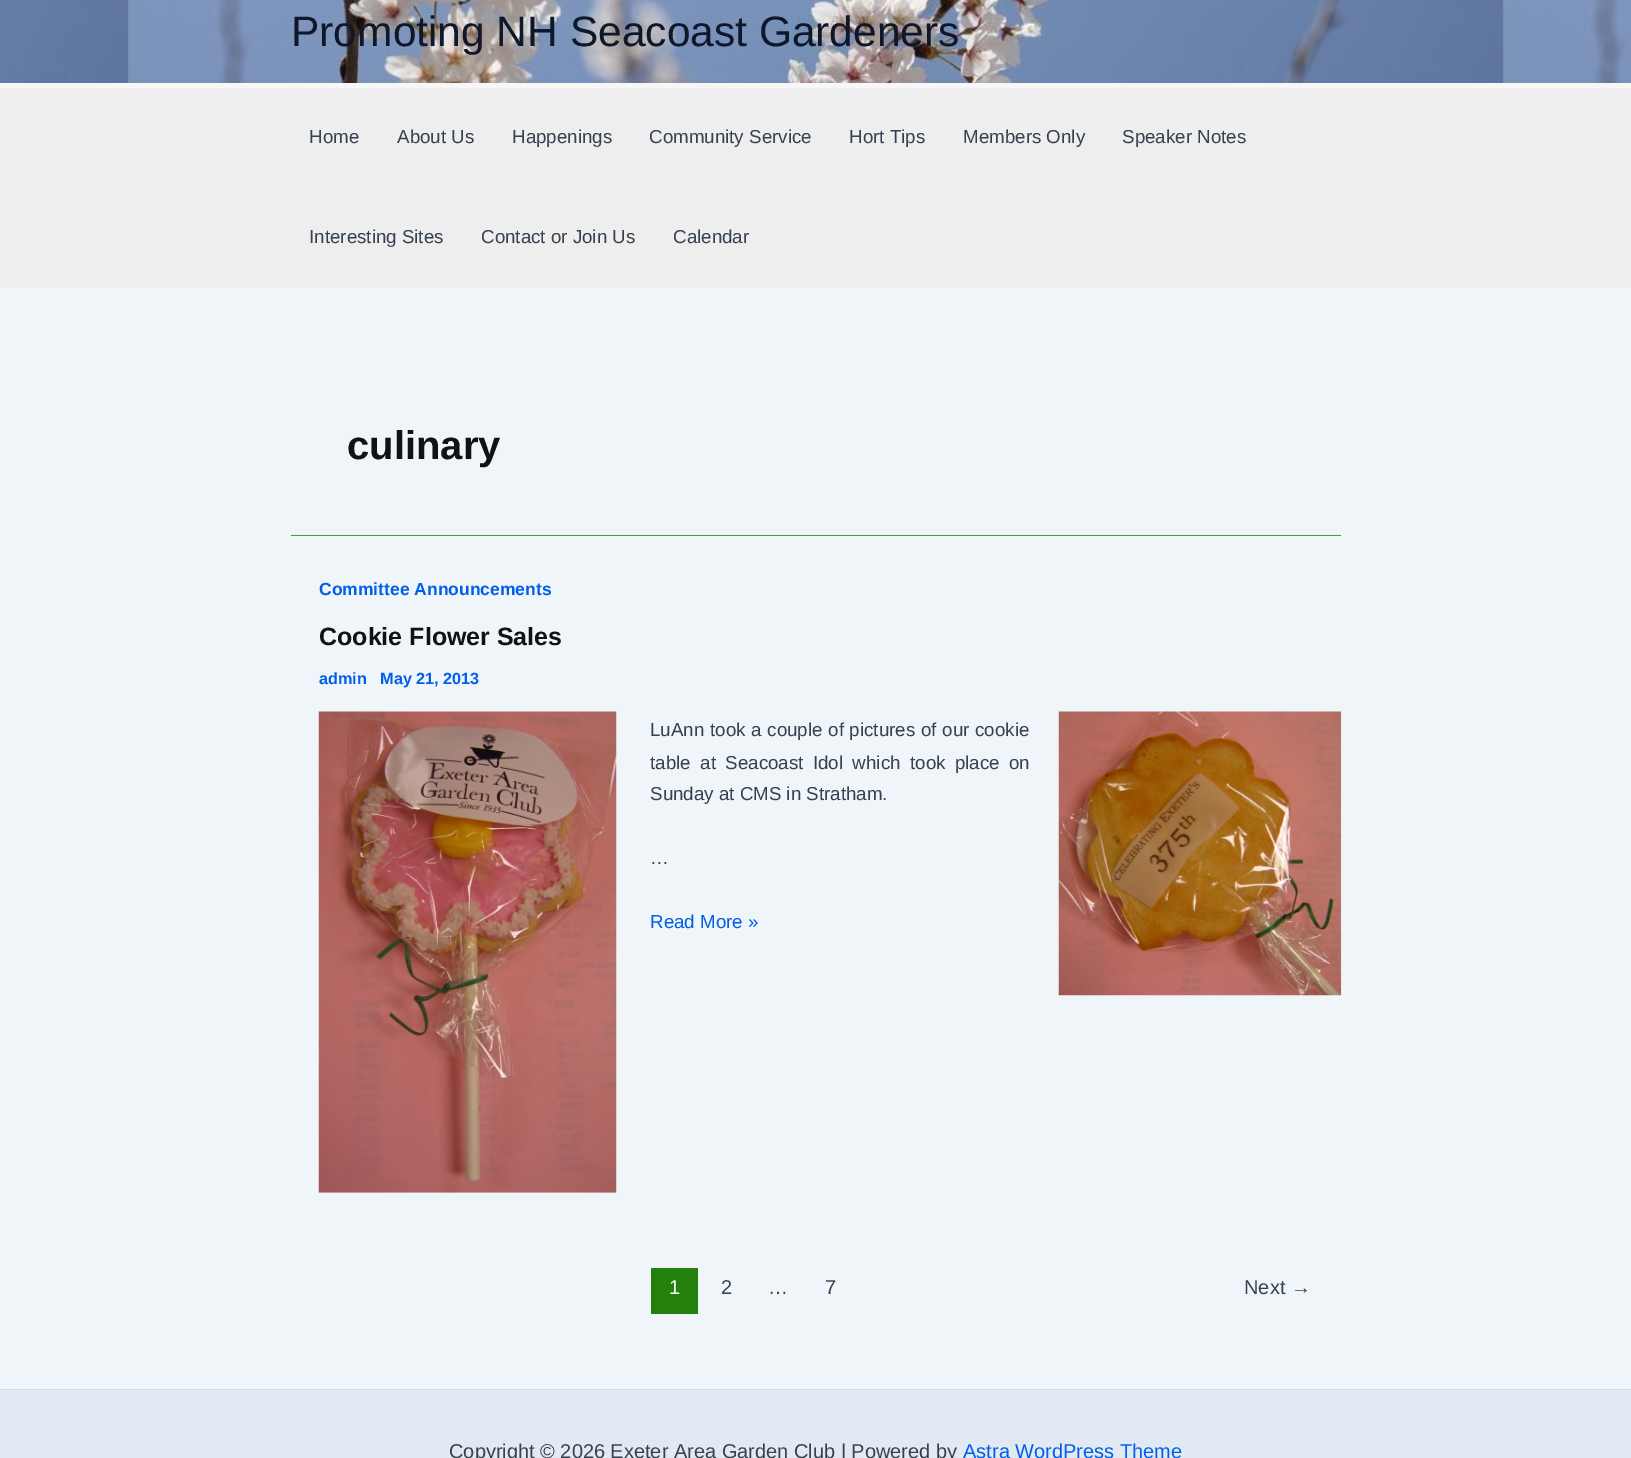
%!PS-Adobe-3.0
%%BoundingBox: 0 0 1631 1458
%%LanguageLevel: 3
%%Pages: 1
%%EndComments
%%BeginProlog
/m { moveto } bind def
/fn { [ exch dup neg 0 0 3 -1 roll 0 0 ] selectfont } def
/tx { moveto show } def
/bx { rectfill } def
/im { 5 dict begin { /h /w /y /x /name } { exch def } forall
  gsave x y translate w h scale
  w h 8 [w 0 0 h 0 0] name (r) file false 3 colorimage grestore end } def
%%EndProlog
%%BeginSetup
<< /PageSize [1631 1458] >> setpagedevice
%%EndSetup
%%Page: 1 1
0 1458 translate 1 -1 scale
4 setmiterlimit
0.941 0.961 0.976 setrgbcolor
0 0 1631 1458 bx
(image0.raw) 0 0 1631 83 im
0.973 0.969 0.969 setrgbcolor
0 83 1631 5 bx
/LiberationSans-Regular 42.5 fn
0.059 0.09 0.165 setrgbcolor
(Promoting NH Seacoast Gardeners) 291 46 tx
0.933 setgray
0 88 1631 200 bx
/LiberationSans-Regular 18.75 fn
0.212 0.255 0.318 setrgbcolor
(Home) 309 143 tx
(About Us) 397 143 tx
(Happenings) 512 143 tx
(Community Service) 649 143 tx
(Hort Tips) 849 143 tx
(Members Only) 963 143 tx
(Speaker Notes) 1122 143 tx
(Interesting Sites) 309 243 tx
(Contact or Join Us) 481 243 tx
(Calendar) 673 243 tx
0.282 0.643 0.125 setrgbcolor
291 535 1050 1 bx
/LiberationSans-Bold 40 fn
0.067 0.071 0.071 setrgbcolor
(culinary) 347 459 tx
/LiberationSans-Bold 17.5 fn
0 0.369 0.914 setrgbcolor
(Committee Announcements) 319 595 tx
/LiberationSans-Bold 25 fn
0.067 0.071 0.071 setrgbcolor
(Cookie Flower Sales) 319 645 tx
/LiberationSans-Bold 16.25 fn
0 0.369 0.914 setrgbcolor
(admin) 319 684 tx
(May 21, 2013) 380 684 tx
(image1.raw) 318 711 299 482 im
/LiberationSans-Regular 18.75 fn
0.212 0.255 0.318 setrgbcolor
650 736 m 0.5 0 32 (LuAnn took a couple of pictures of our cookie) widthshow
(image2.raw) 1058 711 284 285 im
650 769 m 4.25 0 32 (table at Seacoast Idol which took place on) widthshow
(Sunday at CMS in Stratham.) 650 800 tx
(…) 650 864 tx
0 0.369 0.914 setrgbcolor
(Read More ») 650 928 tx
0.133 0.502 0.043 setrgbcolor
651 1268 47 46 bx
/LiberationSans-Regular 20 fn
1 setgray
(1) 669 1294 tx
0.212 0.255 0.318 setrgbcolor
(2) 721 1294 tx
(…) 768 1294 tx
(7) 825 1294 tx
(Next →) 1244 1294 tx
0.882 0.918 0.949 setrgbcolor
0 1390 1631 68 bx
0.82 0.855 0.898 setrgbcolor
0 1389 1631 1 bx
0.212 0.255 0.318 setrgbcolor
(Copyright © 2026 Exeter Area Garden Club | Powered by) 449 1458 tx
0 0.369 0.914 setrgbcolor
(Astra WordPress Theme) 963 1458 tx
showpage
%%EOF
